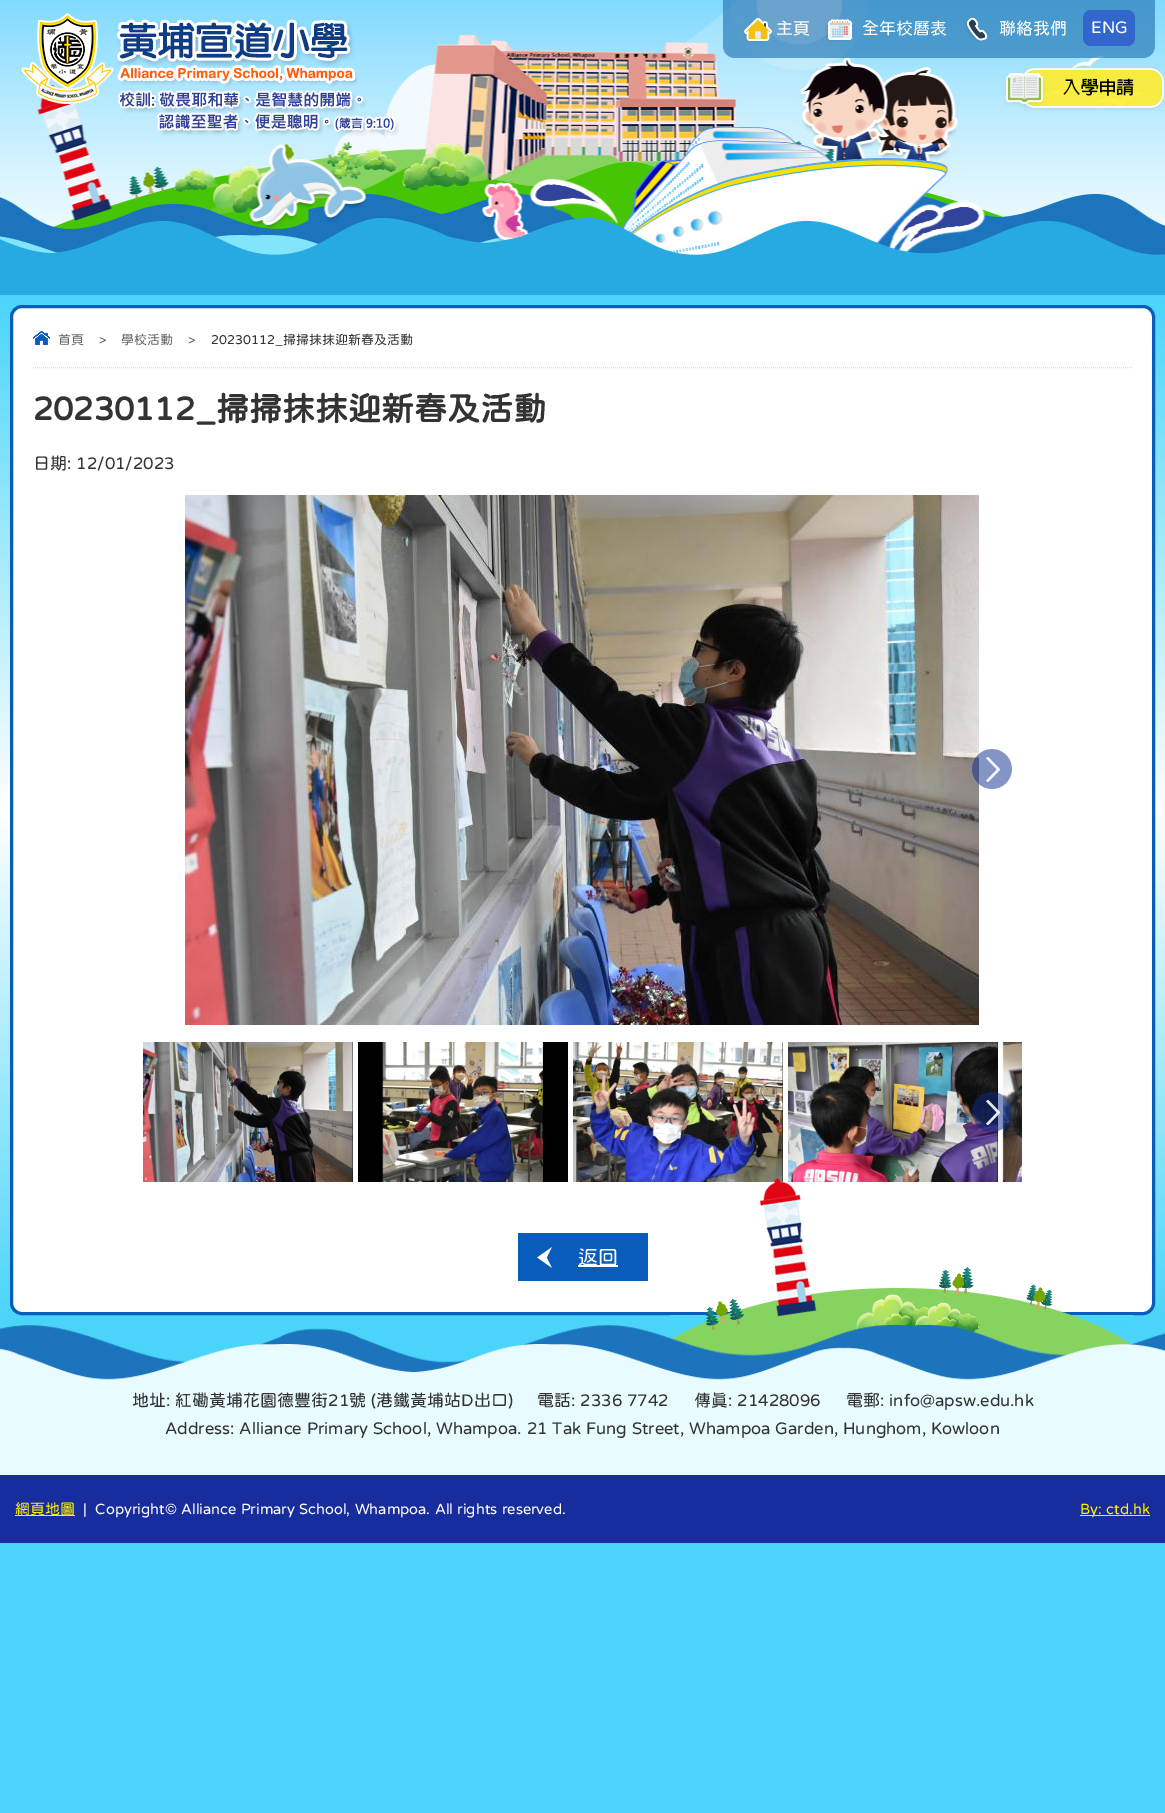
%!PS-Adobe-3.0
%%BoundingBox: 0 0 1165 1813
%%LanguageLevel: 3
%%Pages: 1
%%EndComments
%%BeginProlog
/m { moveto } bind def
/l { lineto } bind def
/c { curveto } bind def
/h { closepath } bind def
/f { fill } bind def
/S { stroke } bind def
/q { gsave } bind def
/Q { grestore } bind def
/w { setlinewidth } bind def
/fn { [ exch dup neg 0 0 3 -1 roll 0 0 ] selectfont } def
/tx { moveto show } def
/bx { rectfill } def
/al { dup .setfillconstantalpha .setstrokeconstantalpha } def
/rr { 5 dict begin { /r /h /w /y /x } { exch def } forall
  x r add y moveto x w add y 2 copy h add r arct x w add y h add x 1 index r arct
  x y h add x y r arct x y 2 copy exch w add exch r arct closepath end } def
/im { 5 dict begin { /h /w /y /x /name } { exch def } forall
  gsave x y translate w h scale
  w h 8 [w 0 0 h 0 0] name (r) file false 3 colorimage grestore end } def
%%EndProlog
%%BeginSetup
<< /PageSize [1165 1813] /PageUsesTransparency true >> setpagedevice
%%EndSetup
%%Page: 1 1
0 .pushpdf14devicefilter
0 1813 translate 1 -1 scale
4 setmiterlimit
0.29 0.831 0.976 setrgbcolor
0 0 1165 1813 bx
(image0.raw) 0 0 1165 295 im
(image1.raw) 21 13 378 123 im
0.7 al
0.169 0.486 0.722 setrgbcolor
723 0 m 1155 0 l 1155 46 l 1155 52.5 1149.5 58 1143 58 c 735 58 l 728.5 58 723 52.5 723 46 c h f
1 al
(image2.raw) 743 18 29 25 im
/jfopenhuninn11-Regular 17 fn
1 setgray
(主頁) 776 34 tx
(image3.raw) 825 19 27 23 im
(全年校曆表) 862 34 tx
(image4.raw) 965 17 23 25 im
(聯絡我們) 999 34 tx
0.2 0.4 0.8 setrgbcolor
1083 10 52 36 8 rr f
1 setgray
(ENG) 1091 33 tx
(image5.raw) 1004 67 161 44 im
q 0 304 m 1165 304 l 1165 1313 l 0 1313 l h clip newpath
<< /ShadingType 2 /ColorSpace /DeviceRGB /Coords [582 295 583 1325] /Extend [true true] /Function << /FunctionType 3 /Domain [0 1] /Functions [<< /FunctionType 2 /Domain [0 1] /C0 [0.286 0.831 0.976] /C1 [1 1 1] /N 1 >> << /FunctionType 2 /Domain [0 1] /C0 [1 1 1] /C1 [0.282 0.831 0.976] /N 1 >>] /Bounds [0.5] /Encode [0 1 0 1] >> >> shfill Q
11.5 306.5 1142 1007 10.5 rr q f Q
0.031 0.361 0.729 setrgbcolor
3 w
S
0.867 setgray
1 w
[1 1] 0 setdash
33 367.5 m 1132 367.5 l S
(image6.raw) 33 331 17 14 im
/jfopenhuninn11-Regular 13 fn
0.4 setgray
(首頁) 58 344 tx
(>) 99 344 tx
(學校活動) 121 344 tx
(>) 188 344 tx
0.2 setgray
(20230112_掃掃抹抹迎新春及活動) 211 344 tx
/jfopenhuninn11-Bold 33 fn
(20230112_掃掃抹抹迎新春及活動) 33 420 tx
/jfopenhuninn11-Regular 17 fn
(日期: 12/01/2023) 33 469 tx
(image7.raw) 185 495 794 530 im
(image8.raw) 972 749 40 40 im
(image9.raw) 143 1042 210 140 im
(image10.raw) 358 1042 210 140 im
(image11.raw) 573 1042 210 140 im
(image12.raw) 788 1042 210 140 im
(image13.raw) 1002 1042 20 140 im
(image14.raw) 972 1092 40 40 im
0.031 0.361 0.729 setrgbcolor
518 1233 130 48 bx
(image15.raw) 537 1247 15 21 im
1 setgray
578 1265 40 2 bx
/jfopenhuninn11-Regular 20 fn
(返回) 578 1264 tx
(image16.raw) 670 1178 463 178 im
(image17.raw) 0 1325 1165 150 im
/jfopenhuninn11-Regular 17 fn
0.2 setgray
(地址: 紅磡黃埔花園德豐街21號 \(港鐵黃埔站D出口\)) 132 1406 tx
(電話: 2336 7742) 537 1406 tx
(傳真: 21428096) 694 1406 tx
(電郵: info@apsw.edu.hk) 846 1406 tx
(Address: Alliance Primary School, Whampoa. 21 Tak Fung Street, Whampoa Garden, Hunghom, Kowloon) 165 1434 tx
0.09 0.176 0.62 setrgbcolor
0 1475 1165 68 bx
1 0.941 0 setrgbcolor
15 1515 60 1 bx
/jfopenhuninn11-Regular 15 fn
(網頁地圖) 15 1514 tx
1 setgray
(|  Copyright© Alliance Primary School, Whampoa. All rights reserved.) 83 1514 tx
1 0.941 0 setrgbcolor
1080 1515 70 1 bx
(By: ctd.hk) 1080 1514 tx
.poppdf14devicefilter showpage
%%EOF
